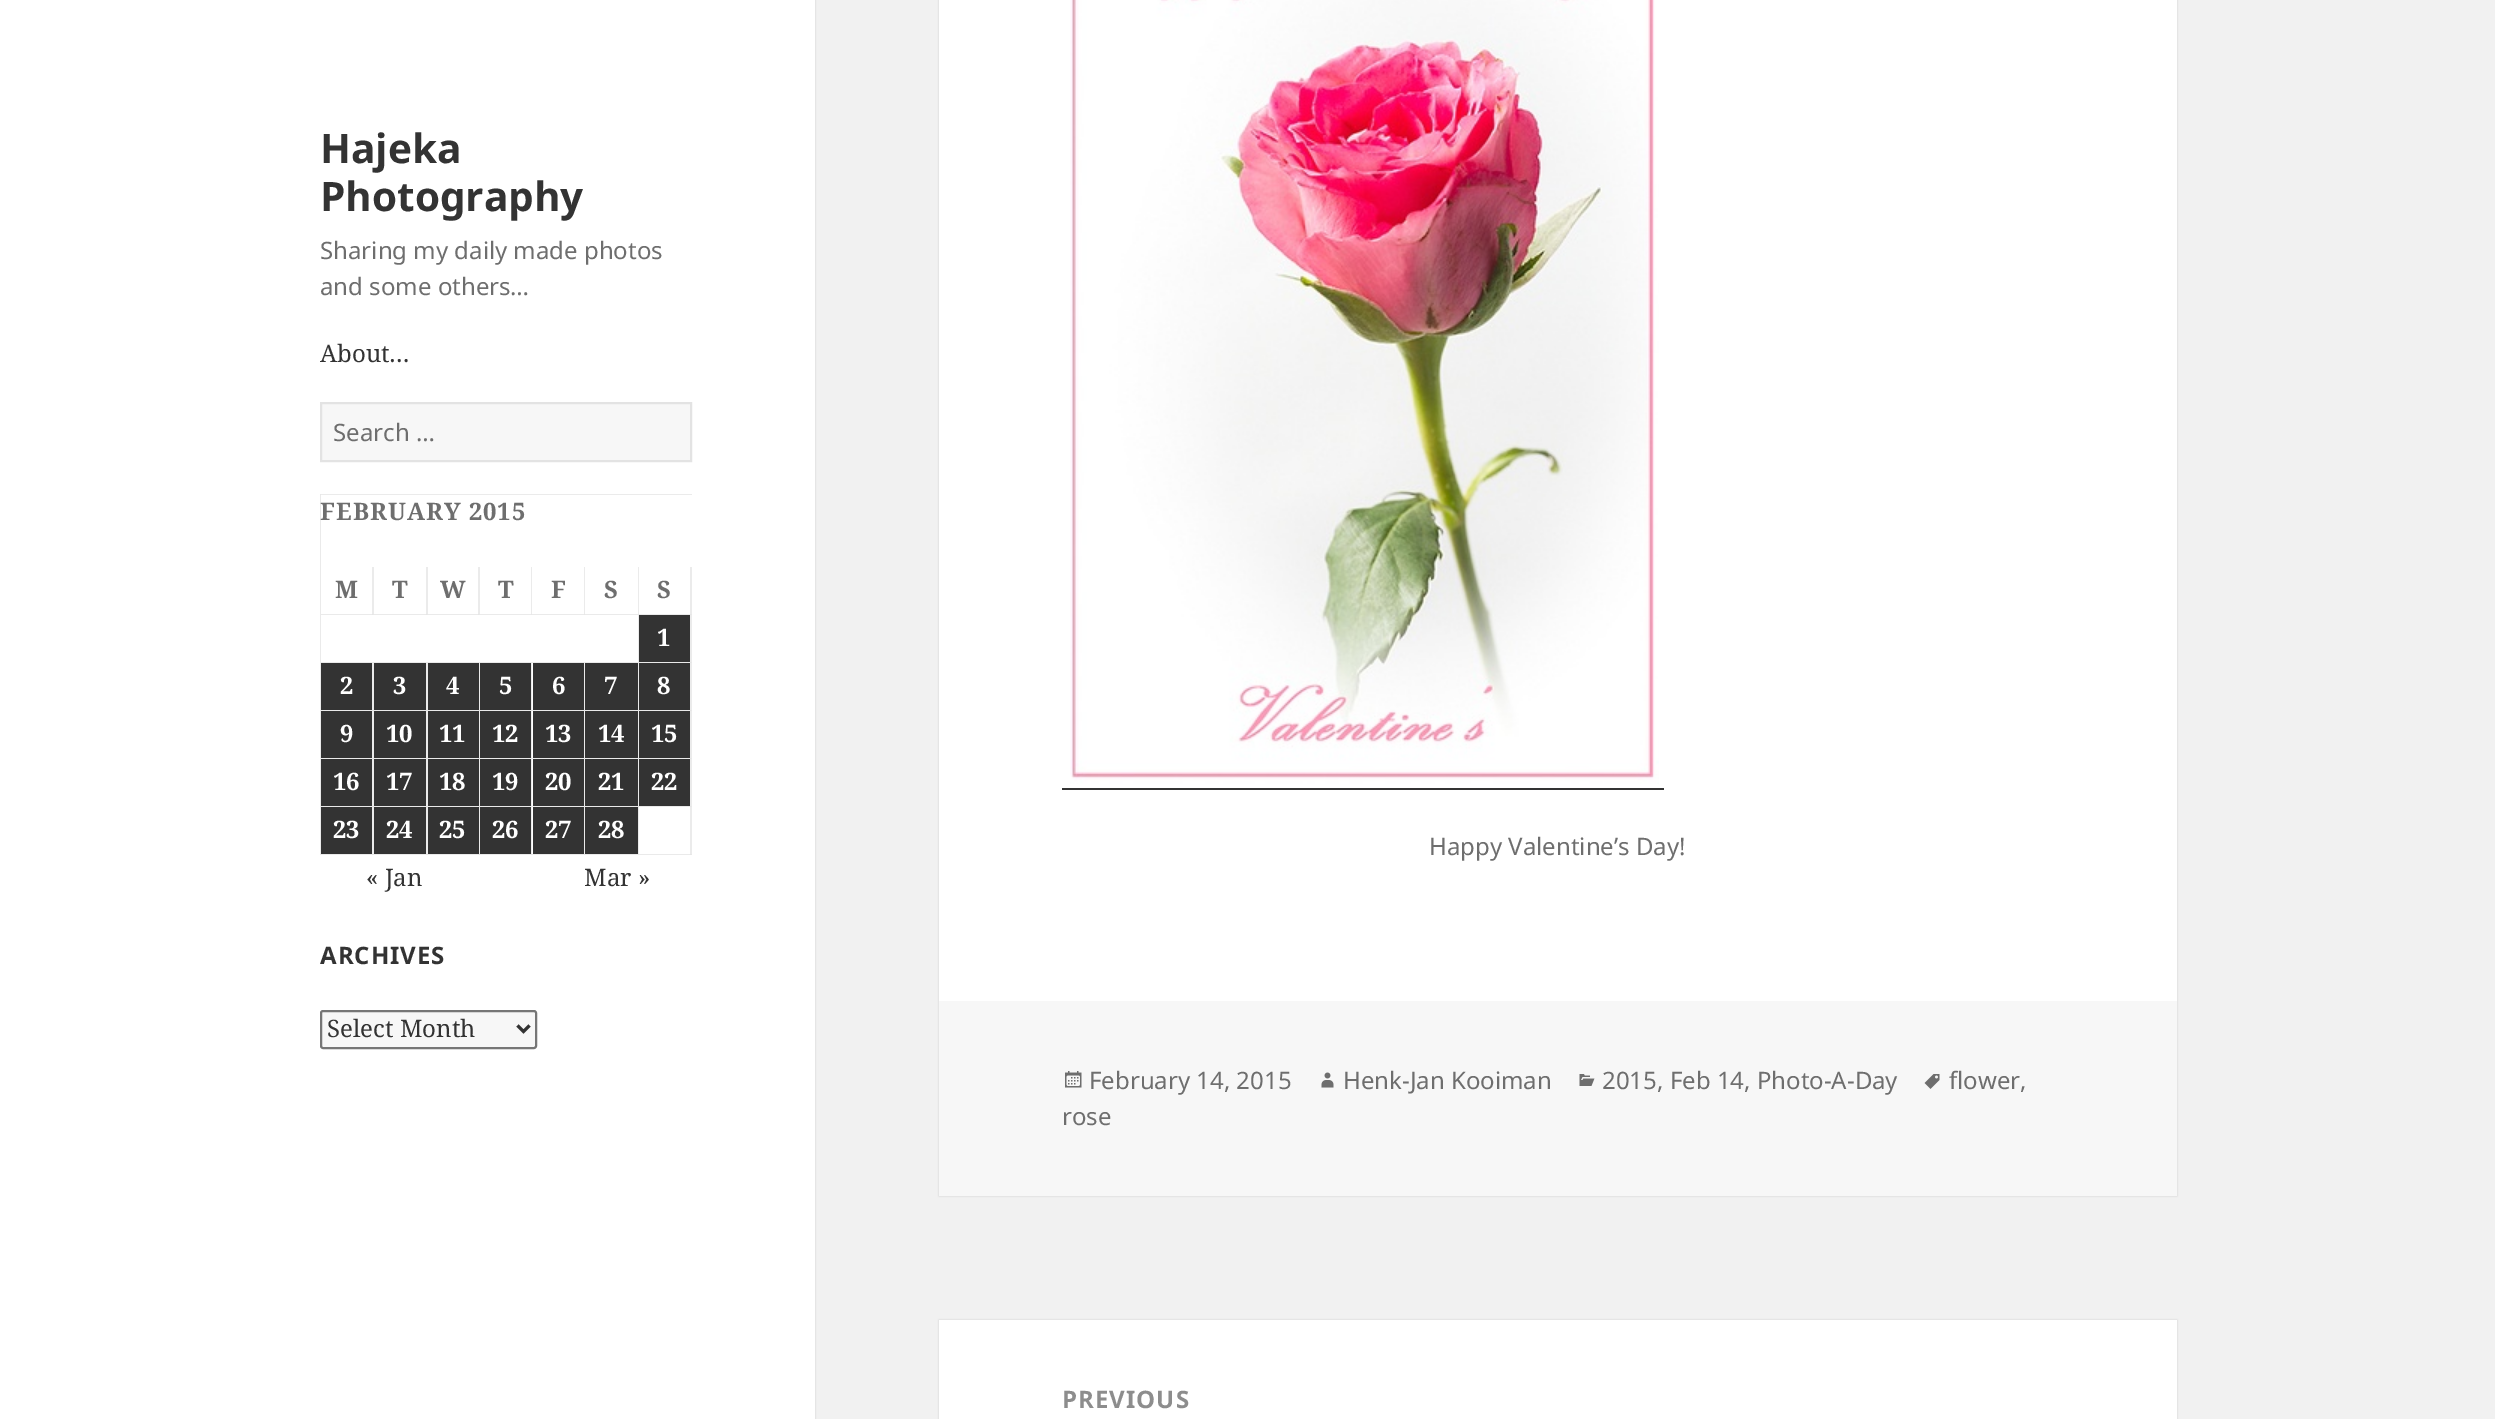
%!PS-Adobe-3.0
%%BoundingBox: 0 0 2495 1419
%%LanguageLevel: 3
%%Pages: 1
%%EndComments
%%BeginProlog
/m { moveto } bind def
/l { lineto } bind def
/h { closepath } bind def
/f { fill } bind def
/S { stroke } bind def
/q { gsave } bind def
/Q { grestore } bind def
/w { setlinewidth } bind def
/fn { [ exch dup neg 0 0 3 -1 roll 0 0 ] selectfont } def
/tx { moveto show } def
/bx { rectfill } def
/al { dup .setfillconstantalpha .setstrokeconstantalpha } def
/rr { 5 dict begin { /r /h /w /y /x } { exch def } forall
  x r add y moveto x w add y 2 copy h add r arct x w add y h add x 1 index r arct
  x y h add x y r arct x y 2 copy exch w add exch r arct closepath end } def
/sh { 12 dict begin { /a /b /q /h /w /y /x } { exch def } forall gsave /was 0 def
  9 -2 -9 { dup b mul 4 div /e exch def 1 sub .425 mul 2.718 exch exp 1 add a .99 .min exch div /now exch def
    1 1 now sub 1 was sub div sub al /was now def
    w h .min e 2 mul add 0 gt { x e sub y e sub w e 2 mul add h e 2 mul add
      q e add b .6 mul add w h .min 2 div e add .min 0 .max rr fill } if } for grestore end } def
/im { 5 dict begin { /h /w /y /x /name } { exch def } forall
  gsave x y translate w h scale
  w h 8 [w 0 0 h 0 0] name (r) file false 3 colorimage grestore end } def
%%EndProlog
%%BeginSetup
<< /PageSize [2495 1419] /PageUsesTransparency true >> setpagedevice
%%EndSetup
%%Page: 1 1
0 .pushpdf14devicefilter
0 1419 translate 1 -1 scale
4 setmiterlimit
0.945 setgray
0 0 2495 1419 bx
0 setgray
0 0 815 1419 0 1 0.15 sh
1 setgray
0 0 815 1419 bx
/NotoSans-Bold 40.5 fn
0.2 setgray
(Hajeka) 320 163 tx
(Photography) 320 211 tx
/NotoSans-Regular 24 fn
0.431 setgray
(Sharing my daily made photos) 320 259 tx
(and some others…) 320 295 tx
/NotoSerif-Regular 24 fn
0.2 setgray
(About…) 320 362 tx
0.969 setgray
321 403 m 691 403 l 691 461 l 321 461 l h q f Q
0.89 setgray
2 w
S
/NotoSans-Regular 24 fn
0.431 setgray
(Search …) 333 441 tx
0.922 setgray
320 494 m 692 494 l 692 495 l 321 495 l h f
0.1 al
0.2 setgray
320 855 m 320 494 l 321 495 l 321 855 l h f
/NotoSerif-Bold 24 fn
1 al
0.431 setgray
320 520 m 1 0 (FEBRUARY 2015) ashow
0.922 setgray
374 567 m 374 615 l 372 614 l 372 567 l h f
0.1 al
0.2 setgray
374 615 m 321 615 l 321 614 l 372 614 l h f
1 al
0.431 setgray
(M) 335 598 tx
0.922 setgray
428 567 m 428 615 l 426 614 l 426 567 l h f
0.1 al
0.2 setgray
428 615 m 374 615 l 374 614 l 426 614 l h f
1 al
0.431 setgray
(T) 392 598 tx
0.922 setgray
480 567 m 480 615 l 478 614 l 478 567 l h f
0.1 al
0.2 setgray
480 615 m 428 615 l 428 614 l 478 614 l h f
1 al
0.431 setgray
(W) 440 598 tx
0.922 setgray
532 567 m 532 615 l 531 614 l 531 567 l h f
0.1 al
0.2 setgray
532 615 m 480 615 l 480 614 l 531 614 l h f
1 al
0.431 setgray
(T) 498 598 tx
0.922 setgray
585 567 m 585 615 l 584 614 l 584 567 l h f
0.1 al
0.2 setgray
585 615 m 532 615 l 532 614 l 584 614 l h f
1 al
0.431 setgray
(F) 551 598 tx
0.922 setgray
639 567 m 639 615 l 638 614 l 638 567 l h f
0.1 al
0.2 setgray
639 615 m 585 615 l 585 614 l 638 614 l h f
1 al
0.431 setgray
(S) 604 598 tx
0.922 setgray
692 567 m 692 615 l 690 614 l 690 567 l h f
0.1 al
0.2 setgray
692 615 m 639 615 l 639 614 l 690 614 l h f
1 al
0.431 setgray
(S) 657 598 tx
0.922 setgray
639 615 m 639 663 l 638 662 l 638 615 l h f
0.1 al
0.2 setgray
639 663 m 321 663 l 321 662 l 638 662 l h f
1 al
0.922 setgray
692 615 m 692 663 l 690 662 l 690 615 l h f
0.1 al
0.2 setgray
692 663 m 639 663 l 639 662 l 690 662 l h f
1 al
639 615 51 47 bx
1 setgray
(1) 657 646 tx
0.922 setgray
374 663 m 374 711 l 372 710 l 372 663 l h f
0.1 al
0.2 setgray
374 711 m 321 711 l 321 710 l 372 710 l h f
1 al
321 663 51 47 bx
1 setgray
(2) 340 694 tx
0.922 setgray
428 663 m 428 711 l 426 710 l 426 663 l h f
0.1 al
0.2 setgray
428 711 m 374 711 l 374 710 l 426 710 l h f
1 al
374 663 52 47 bx
1 setgray
(3) 393 694 tx
0.922 setgray
480 663 m 480 711 l 478 710 l 478 663 l h f
0.1 al
0.2 setgray
480 711 m 428 711 l 428 710 l 478 710 l h f
1 al
428 663 51 47 bx
1 setgray
(4) 446 694 tx
0.922 setgray
532 663 m 532 711 l 531 710 l 531 663 l h f
0.1 al
0.2 setgray
532 711 m 480 711 l 480 710 l 531 710 l h f
1 al
480 663 51 47 bx
1 setgray
(5) 499 694 tx
0.922 setgray
585 663 m 585 711 l 584 710 l 584 663 l h f
0.1 al
0.2 setgray
585 711 m 532 711 l 532 710 l 584 710 l h f
1 al
533 663 51 47 bx
1 setgray
(6) 552 694 tx
0.922 setgray
639 663 m 639 711 l 638 710 l 638 663 l h f
0.1 al
0.2 setgray
639 711 m 585 711 l 585 710 l 638 710 l h f
1 al
585 663 53 47 bx
1 setgray
(7) 604 694 tx
0.922 setgray
692 663 m 692 711 l 690 710 l 690 663 l h f
0.1 al
0.2 setgray
692 711 m 639 711 l 639 710 l 690 710 l h f
1 al
639 663 51 47 bx
1 setgray
(8) 657 694 tx
0.922 setgray
374 711 m 374 759 l 372 758 l 372 711 l h f
0.1 al
0.2 setgray
374 759 m 321 759 l 321 758 l 372 758 l h f
1 al
321 711 51 47 bx
1 setgray
(9) 340 742 tx
0.922 setgray
428 711 m 428 759 l 426 758 l 426 711 l h f
0.1 al
0.2 setgray
428 759 m 374 759 l 374 758 l 426 758 l h f
1 al
374 711 52 47 bx
1 setgray
(10) 386 742 tx
0.922 setgray
480 711 m 480 759 l 478 758 l 478 711 l h f
0.1 al
0.2 setgray
480 759 m 428 759 l 428 758 l 478 758 l h f
1 al
428 711 51 47 bx
1 setgray
(11) 439 742 tx
0.922 setgray
532 711 m 532 759 l 531 758 l 531 711 l h f
0.1 al
0.2 setgray
532 759 m 480 759 l 480 758 l 531 758 l h f
1 al
480 711 51 47 bx
1 setgray
(12) 492 742 tx
0.922 setgray
585 711 m 585 759 l 584 758 l 584 711 l h f
0.1 al
0.2 setgray
585 759 m 532 759 l 532 758 l 584 758 l h f
1 al
533 711 51 47 bx
1 setgray
(13) 545 742 tx
0.922 setgray
639 711 m 639 759 l 638 758 l 638 711 l h f
0.1 al
0.2 setgray
639 759 m 585 759 l 585 758 l 638 758 l h f
1 al
585 711 53 47 bx
1 setgray
(14) 598 742 tx
0.922 setgray
692 711 m 692 759 l 690 758 l 690 711 l h f
0.1 al
0.2 setgray
692 759 m 639 759 l 639 758 l 690 758 l h f
1 al
639 711 51 47 bx
1 setgray
(15) 651 742 tx
0.922 setgray
374 759 m 374 807 l 372 806 l 372 759 l h f
0.1 al
0.2 setgray
374 807 m 321 807 l 321 806 l 372 806 l h f
1 al
321 759 51 47 bx
1 setgray
(16) 333 790 tx
0.922 setgray
428 759 m 428 807 l 426 806 l 426 759 l h f
0.1 al
0.2 setgray
428 807 m 374 807 l 374 806 l 426 806 l h f
1 al
374 759 52 47 bx
1 setgray
(17) 386 790 tx
0.922 setgray
480 759 m 480 807 l 478 806 l 478 759 l h f
0.1 al
0.2 setgray
480 807 m 428 807 l 428 806 l 478 806 l h f
1 al
428 759 51 47 bx
1 setgray
(18) 439 790 tx
0.922 setgray
532 759 m 532 807 l 531 806 l 531 759 l h f
0.1 al
0.2 setgray
532 807 m 480 807 l 480 806 l 531 806 l h f
1 al
480 759 51 47 bx
1 setgray
(19) 492 790 tx
0.922 setgray
585 759 m 585 807 l 584 806 l 584 759 l h f
0.1 al
0.2 setgray
585 807 m 532 807 l 532 806 l 584 806 l h f
1 al
533 759 51 47 bx
1 setgray
(20) 545 790 tx
0.922 setgray
639 759 m 639 807 l 638 806 l 638 759 l h f
0.1 al
0.2 setgray
639 807 m 585 807 l 585 806 l 638 806 l h f
1 al
585 759 53 47 bx
1 setgray
(21) 598 790 tx
0.922 setgray
692 759 m 692 807 l 690 806 l 690 759 l h f
0.1 al
0.2 setgray
692 807 m 639 807 l 639 806 l 690 806 l h f
1 al
639 759 51 47 bx
1 setgray
(22) 651 790 tx
0.922 setgray
374 807 m 374 855 l 372 854 l 372 807 l h f
0.1 al
0.2 setgray
374 855 m 321 855 l 321 854 l 372 854 l h f
1 al
321 807 51 47 bx
1 setgray
(23) 333 838 tx
0.922 setgray
428 807 m 428 855 l 426 854 l 426 807 l h f
0.1 al
0.2 setgray
428 855 m 374 855 l 374 854 l 426 854 l h f
1 al
374 807 52 47 bx
1 setgray
(24) 386 838 tx
0.922 setgray
480 807 m 480 855 l 478 854 l 478 807 l h f
0.1 al
0.2 setgray
480 855 m 428 855 l 428 854 l 478 854 l h f
1 al
428 807 51 47 bx
1 setgray
(25) 439 838 tx
0.922 setgray
532 807 m 532 855 l 531 854 l 531 807 l h f
0.1 al
0.2 setgray
532 855 m 480 855 l 480 854 l 531 854 l h f
1 al
480 807 51 47 bx
1 setgray
(26) 492 838 tx
0.922 setgray
585 807 m 585 855 l 584 854 l 584 807 l h f
0.1 al
0.2 setgray
585 855 m 532 855 l 532 854 l 584 854 l h f
1 al
533 807 51 47 bx
1 setgray
(27) 545 838 tx
0.922 setgray
639 807 m 639 855 l 638 854 l 638 807 l h f
0.1 al
0.2 setgray
639 855 m 585 855 l 585 854 l 638 854 l h f
1 al
585 807 53 47 bx
1 setgray
(28) 598 838 tx
0.922 setgray
692 807 m 692 855 l 690 854 l 690 807 l h f
0.1 al
0.2 setgray
692 855 m 639 855 l 639 854 l 690 854 l h f
/NotoSerif-Regular 24 fn
1 al
(« Jan) 366 886 tx
(Mar ») 584 886 tx
/NotoSans-Bold 24 fn
320 964 m 1 0 (ARCHIVES) ashow
0.969 setgray
321 1011 215 37 2 rr q f Q
0.463 setgray
S
0.2 setgray
3 w
517.5 1025.5 m 523.5 1031.5 l 529.5 1025.5 l S
/NotoSerif-Regular 24 fn
(Select Month) 327 1037 tx
0 setgray
939 -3 1238 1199 0 1 0.15 sh
1 setgray
939 0 1238 1001 bx
0.2 setgray
1062 788 602 2 bx
(image0.raw) 1070 0 589 784 im
/NotoSans-Regular 24 fn
0.431 setgray
(Happy Valentine’s Day!) 1429 855 tx
0.969 setgray
939 1001 1238 195 bx
(image1.raw) 1924 1074 16 15 im
0.431 setgray
(flower,) 1949 1089 tx
(rose) 1062 1125 tx
(image2.raw) 1065 1071 17 17 im
(February 14, 2015) 1089 1089 tx
(image3.raw) 1321 1072 13 16 im
(Henk-Jan Kooiman) 1343 1089 tx
(image4.raw) 1579 1074 16 12 im
(2015, Feb 14, Photo-A-Day) 1602 1089 tx
0 setgray
939 1320 1238 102 0 1 0.15 sh
1 setgray
939 1320 1238 99 bx
/NotoSans-Bold 24 fn
0.553 setgray
1062 1408 m 1 0 (PREVIOUS) ashow
.poppdf14devicefilter showpage
%%EOF
